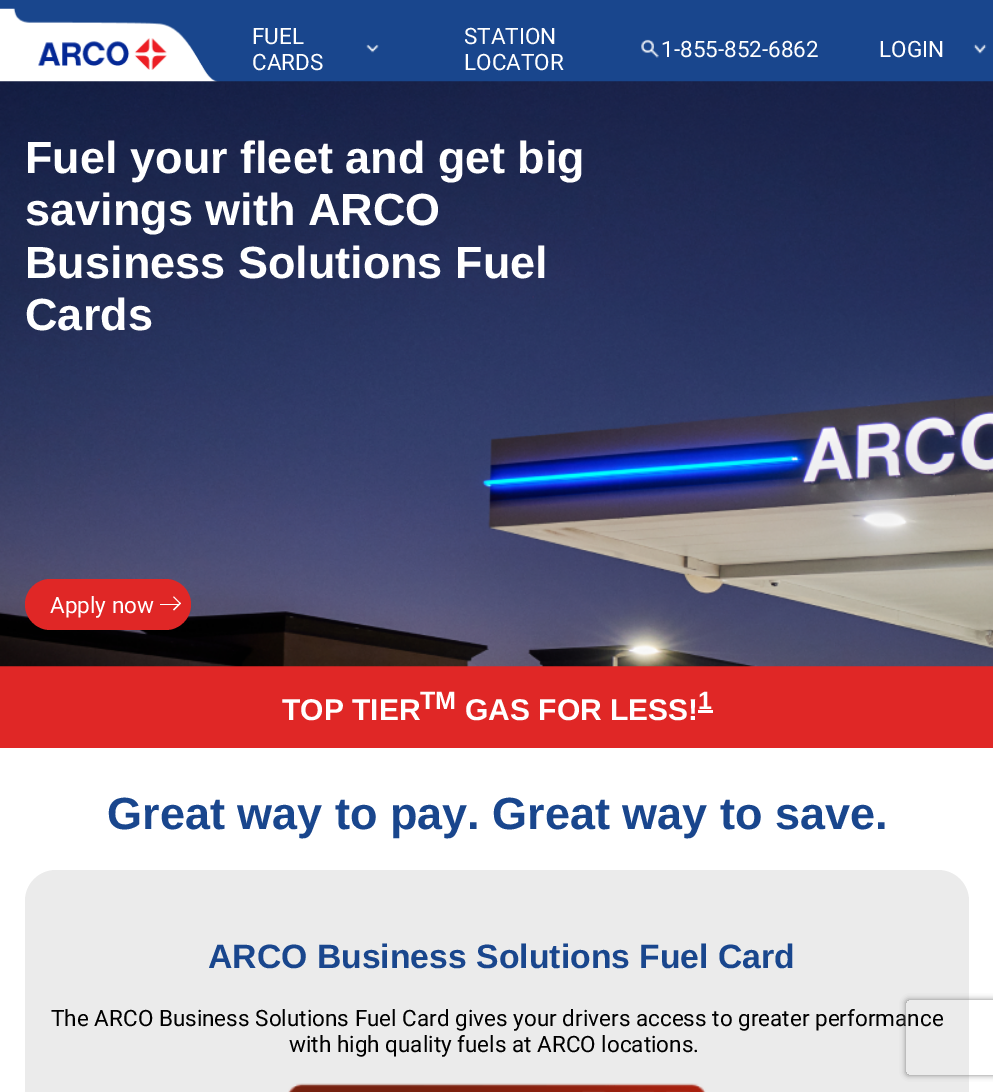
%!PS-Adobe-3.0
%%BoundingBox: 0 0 993 1092
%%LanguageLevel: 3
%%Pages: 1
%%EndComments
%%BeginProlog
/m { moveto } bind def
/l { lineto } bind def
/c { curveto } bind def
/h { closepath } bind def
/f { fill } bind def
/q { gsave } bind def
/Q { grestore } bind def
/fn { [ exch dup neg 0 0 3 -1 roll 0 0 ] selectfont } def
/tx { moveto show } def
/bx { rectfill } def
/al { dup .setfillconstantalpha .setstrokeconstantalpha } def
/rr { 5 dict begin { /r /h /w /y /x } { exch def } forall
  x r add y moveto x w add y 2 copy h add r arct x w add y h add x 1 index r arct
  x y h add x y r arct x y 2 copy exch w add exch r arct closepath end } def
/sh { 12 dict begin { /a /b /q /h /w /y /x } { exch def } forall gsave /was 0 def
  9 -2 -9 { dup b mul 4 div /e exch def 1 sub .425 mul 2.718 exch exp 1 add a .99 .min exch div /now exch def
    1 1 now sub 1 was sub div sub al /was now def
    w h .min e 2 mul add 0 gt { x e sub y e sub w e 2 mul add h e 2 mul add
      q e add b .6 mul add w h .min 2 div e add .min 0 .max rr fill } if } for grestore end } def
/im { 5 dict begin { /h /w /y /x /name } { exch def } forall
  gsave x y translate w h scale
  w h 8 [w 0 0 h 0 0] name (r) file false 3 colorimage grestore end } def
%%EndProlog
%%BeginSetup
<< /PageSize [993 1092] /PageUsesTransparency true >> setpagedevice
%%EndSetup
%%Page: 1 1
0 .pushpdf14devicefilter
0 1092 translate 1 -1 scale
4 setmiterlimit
1 setgray
0 0 993 1092 bx
0.098 0.275 0.553 setrgbcolor
0 0 993 82 bx
(image0.raw) 0 8 220 74 im
/Roboto-Regular 22.5 fn
1 setgray
(FUEL) 252 44 tx
(image1.raw) 366 44 13 9 im
(CARDS) 252 70 tx
(STATION) 464 44 tx
(image2.raw) 641 39 18 19 im
(LOCATOR) 464 70 tx
(1-855-852-6862) 661 57 tx
(LOGIN) 879 57 tx
(image3.raw) 973 44 14 10 im
0.878 0.153 0.149 setrgbcolor
0 666 993 82 bx
(image4.raw) 0 81 993 586 im
/LiberationSans-Bold 45 fn
1 setgray
(Fuel your fleet and get big) 25 173 tx
(savings with ARCO) 25 225 tx
(Business Solutions Fuel) 25 278 tx
(Cards) 25 330 tx
0.878 0.153 0.149 setrgbcolor
25 579 166 51 25.5 rr f
/Roboto-Regular 22.5 fn
1 setgray
(Apply now) 50 613 tx
173 597 m 174 596.5 l 181 603.5 l 180 604 l h f
173 609.5 m 180 602.5 l 181 603.5 l 174 610.5 l h f
160 604 19 1 bx
/LiberationSans-Bold 30 fn
(TOP TIER) 282 720 tx
/LiberationSans-Bold 25 fn
(TM) 420 709 tx
/LiberationSans-Bold 30 fn
(GAS FOR LESS!) 465 720 tx
/LiberationSans-Bold 25 fn
(1) 698 709 tx
698 710 15 3 bx
/LiberationSans-Bold 45 fn
0.098 0.275 0.553 setrgbcolor
(Great way to pay. Great way to save.) 107 829 tx
0.922 setgray
25 870 944 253 31 rr f
/LiberationSans-Bold 33.75 fn
0.098 0.275 0.553 setrgbcolor
(ARCO Business Solutions Fuel Card) 208 968 tx
/Roboto-Regular 22.5 fn
0 setgray
(The ARCO Business Solutions Fuel Card gives your drivers access to greater performance) 51 1026 tx
(with high quality fuels at ARCO locations.) 289 1052 tx
(image5.raw) 288 1083 418 9 im
q
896 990 m 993 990 l 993 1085 l 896 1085 l h 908.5 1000 m 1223.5 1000 l 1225 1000 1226 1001 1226 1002.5 c 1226 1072.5 l 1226 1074 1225 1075 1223.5 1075 c 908.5 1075 l 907 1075 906 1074 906 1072.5 c 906 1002.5 l 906 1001 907 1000 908.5 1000 c h eoclip newpath
0.502 setgray
906 1000 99 75 2.5 3 1 sh
Q
.poppdf14devicefilter showpage
%%EOF
